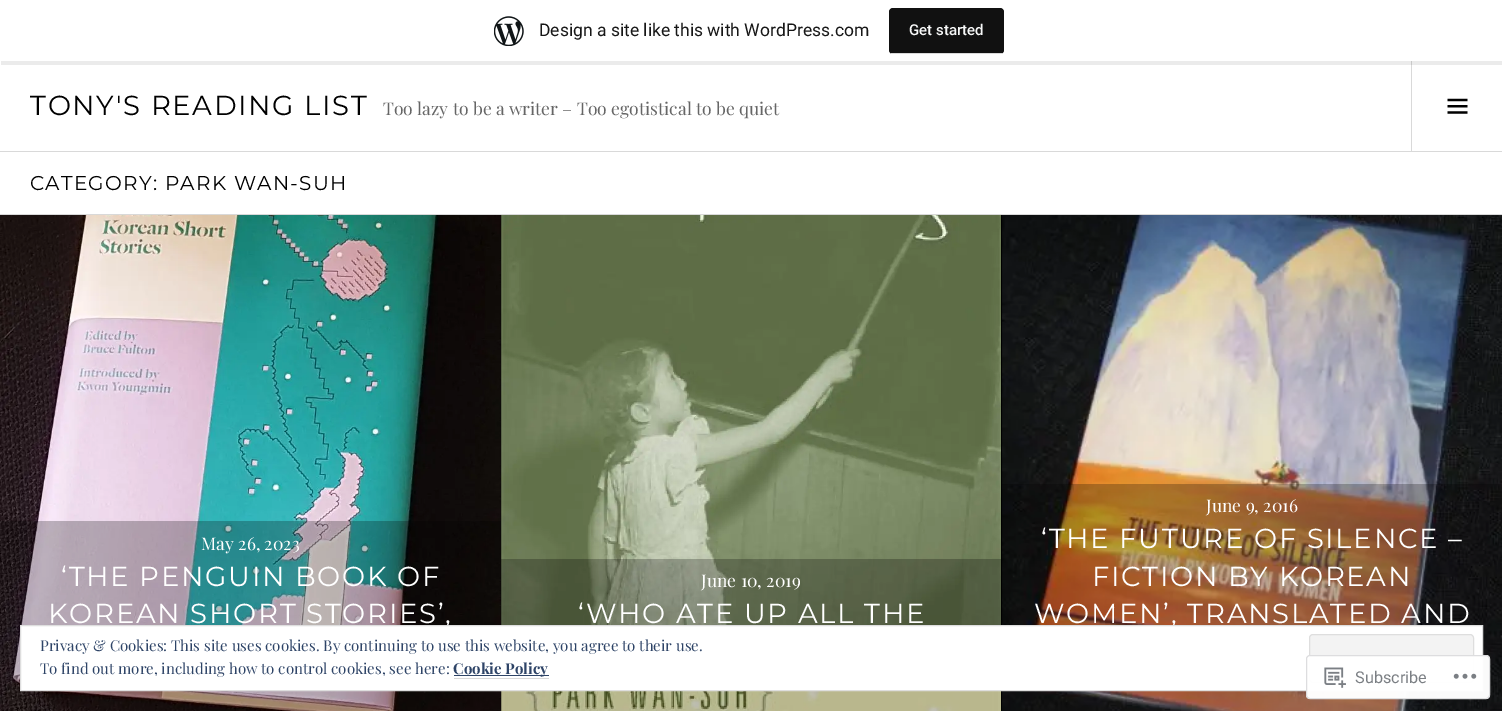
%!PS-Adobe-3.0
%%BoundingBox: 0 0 1502 711
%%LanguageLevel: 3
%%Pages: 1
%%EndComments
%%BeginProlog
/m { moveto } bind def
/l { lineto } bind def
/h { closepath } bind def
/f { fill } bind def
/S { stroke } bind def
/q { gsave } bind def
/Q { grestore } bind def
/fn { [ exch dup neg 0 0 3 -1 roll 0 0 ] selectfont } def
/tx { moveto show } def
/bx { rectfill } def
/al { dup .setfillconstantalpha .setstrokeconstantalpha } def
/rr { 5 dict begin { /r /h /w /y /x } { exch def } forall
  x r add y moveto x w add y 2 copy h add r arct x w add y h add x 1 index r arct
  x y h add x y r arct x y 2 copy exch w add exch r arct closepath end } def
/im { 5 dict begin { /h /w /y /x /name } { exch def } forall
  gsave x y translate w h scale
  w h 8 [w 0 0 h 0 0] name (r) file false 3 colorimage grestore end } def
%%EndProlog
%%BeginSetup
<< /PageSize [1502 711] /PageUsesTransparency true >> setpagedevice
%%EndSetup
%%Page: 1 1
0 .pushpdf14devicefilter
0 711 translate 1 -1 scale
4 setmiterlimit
1 setgray
0 0 1502 711 bx
0.851 setgray
1411 61 1 90 bx
0.08 al
0 setgray
1 61 m 1 65 l 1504 65 l 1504 4 l 1502 4 l 1502 61 l h f
1 al
(image0.raw) 494 16 30 30 im
/Roboto-Regular 17.5 fn
0.09 setgray
(Design a site like this with WordPress.com) 539 36 tx
0.067 setgray
889 8 115 46 4 rr f
0.851 setgray
891 53 112 1 bx
/Roboto-Medium 15 fn
0.965 0.969 0.969 setrgbcolor
(Get started) 909 35 tx
0.851 setgray
0 151 1502 1 bx
/Montserrat-Regular 27.5 fn
0 setgray
30 115 m 1.75 0 (TONY'S READING LIST) ashow
/PlayfairDisplay-Regular 17.5 fn
0.4 setgray
(Too lazy to be a writer – Too egotistical to be quiet) 383 115 tx
(image1.raw) 1447 98 21 16 im
0.851 setgray
0 214 1502 1 bx
/Montserrat-Regular 20 fn
0 setgray
30 190 m 1.25 0 (CATEGORY: PARK WAN-SUH) ashow
(image2.raw) 0 215 501 496 im
0.25 al
0 521 501 190 bx
/PlayfairDisplay-Regular 17.5 fn
1 al
1 setgray
(May 26, 2023) 201 550 tx
/Montserrat-Regular 27.5 fn
61 586 m 1.75 0 (‘THE PENGUIN BOOK OF) ashow
48 623 m 1.75 0 (KOREAN SHORT STORIES’,) ashow
(image3.raw) 501 215 500 496 im
0.25 al
0 setgray
501 559 500 152 bx
/PlayfairDisplay-Regular 17.5 fn
1 al
1 setgray
(June 10, 2019) 701 587 tx
/Montserrat-Regular 27.5 fn
578 623 m 1.75 0 (‘WHO ATE UP ALL THE) ashow
0 setgray
1001 215 2 496 bx
(image4.raw) 1002 215 500 496 im
0.25 al
1002 484 500 227 bx
/PlayfairDisplay-Regular 17.5 fn
1 al
1 setgray
(June 9, 2016) 1206 512 tx
/Montserrat-Regular 27.5 fn
1041 548 m 1.75 0 (‘THE FUTURE OF SILENCE –) ashow
1092 586 m 1.75 0 (FICTION BY KOREAN) ashow
1034 623 m 1.75 0 (WOMEN’, TRANSLATED AND) ashow
20.5 625.5 m 1482.5 625.5 l 1482.5 690.5 l 20.5 690.5 l h q f Q
0.871 setgray
S
/PlayfairDisplay-Regular 15 fn
0.18 0.267 0.404 setrgbcolor
(Privacy & Cookies: This site uses cookies. By continuing to use this website, you agree to their use.) 40 651 tx
0.953 setgray
1309.5 634.5 164 48 3.5 rr q f Q
0.871 setgray
S
0.18 0.267 0.404 setrgbcolor
(To find out more, including how to control cookies, see here:) 40 674 tx
454 675 95 1 bx
/PlayfairDisplay-Bold 15 fn
(Cookie Policy) 453 674 tx
0.851 setgray
454 678 95 1 bx
0.98 al
1 setgray
1306 655 184 44 4 rr f
0.863 0.863 0.871 setrgbcolor
1306.5 655.5 183 43 3.5 rr S
1 al
(image5.raw) 1324 667 22 21 im
/Roboto-Regular 16.25 fn
0.482 0.498 0.518 setrgbcolor
(Subscribe) 1355 683 tx
(image6.raw) 1453 673 24 6 im
.poppdf14devicefilter showpage
%%EOF
